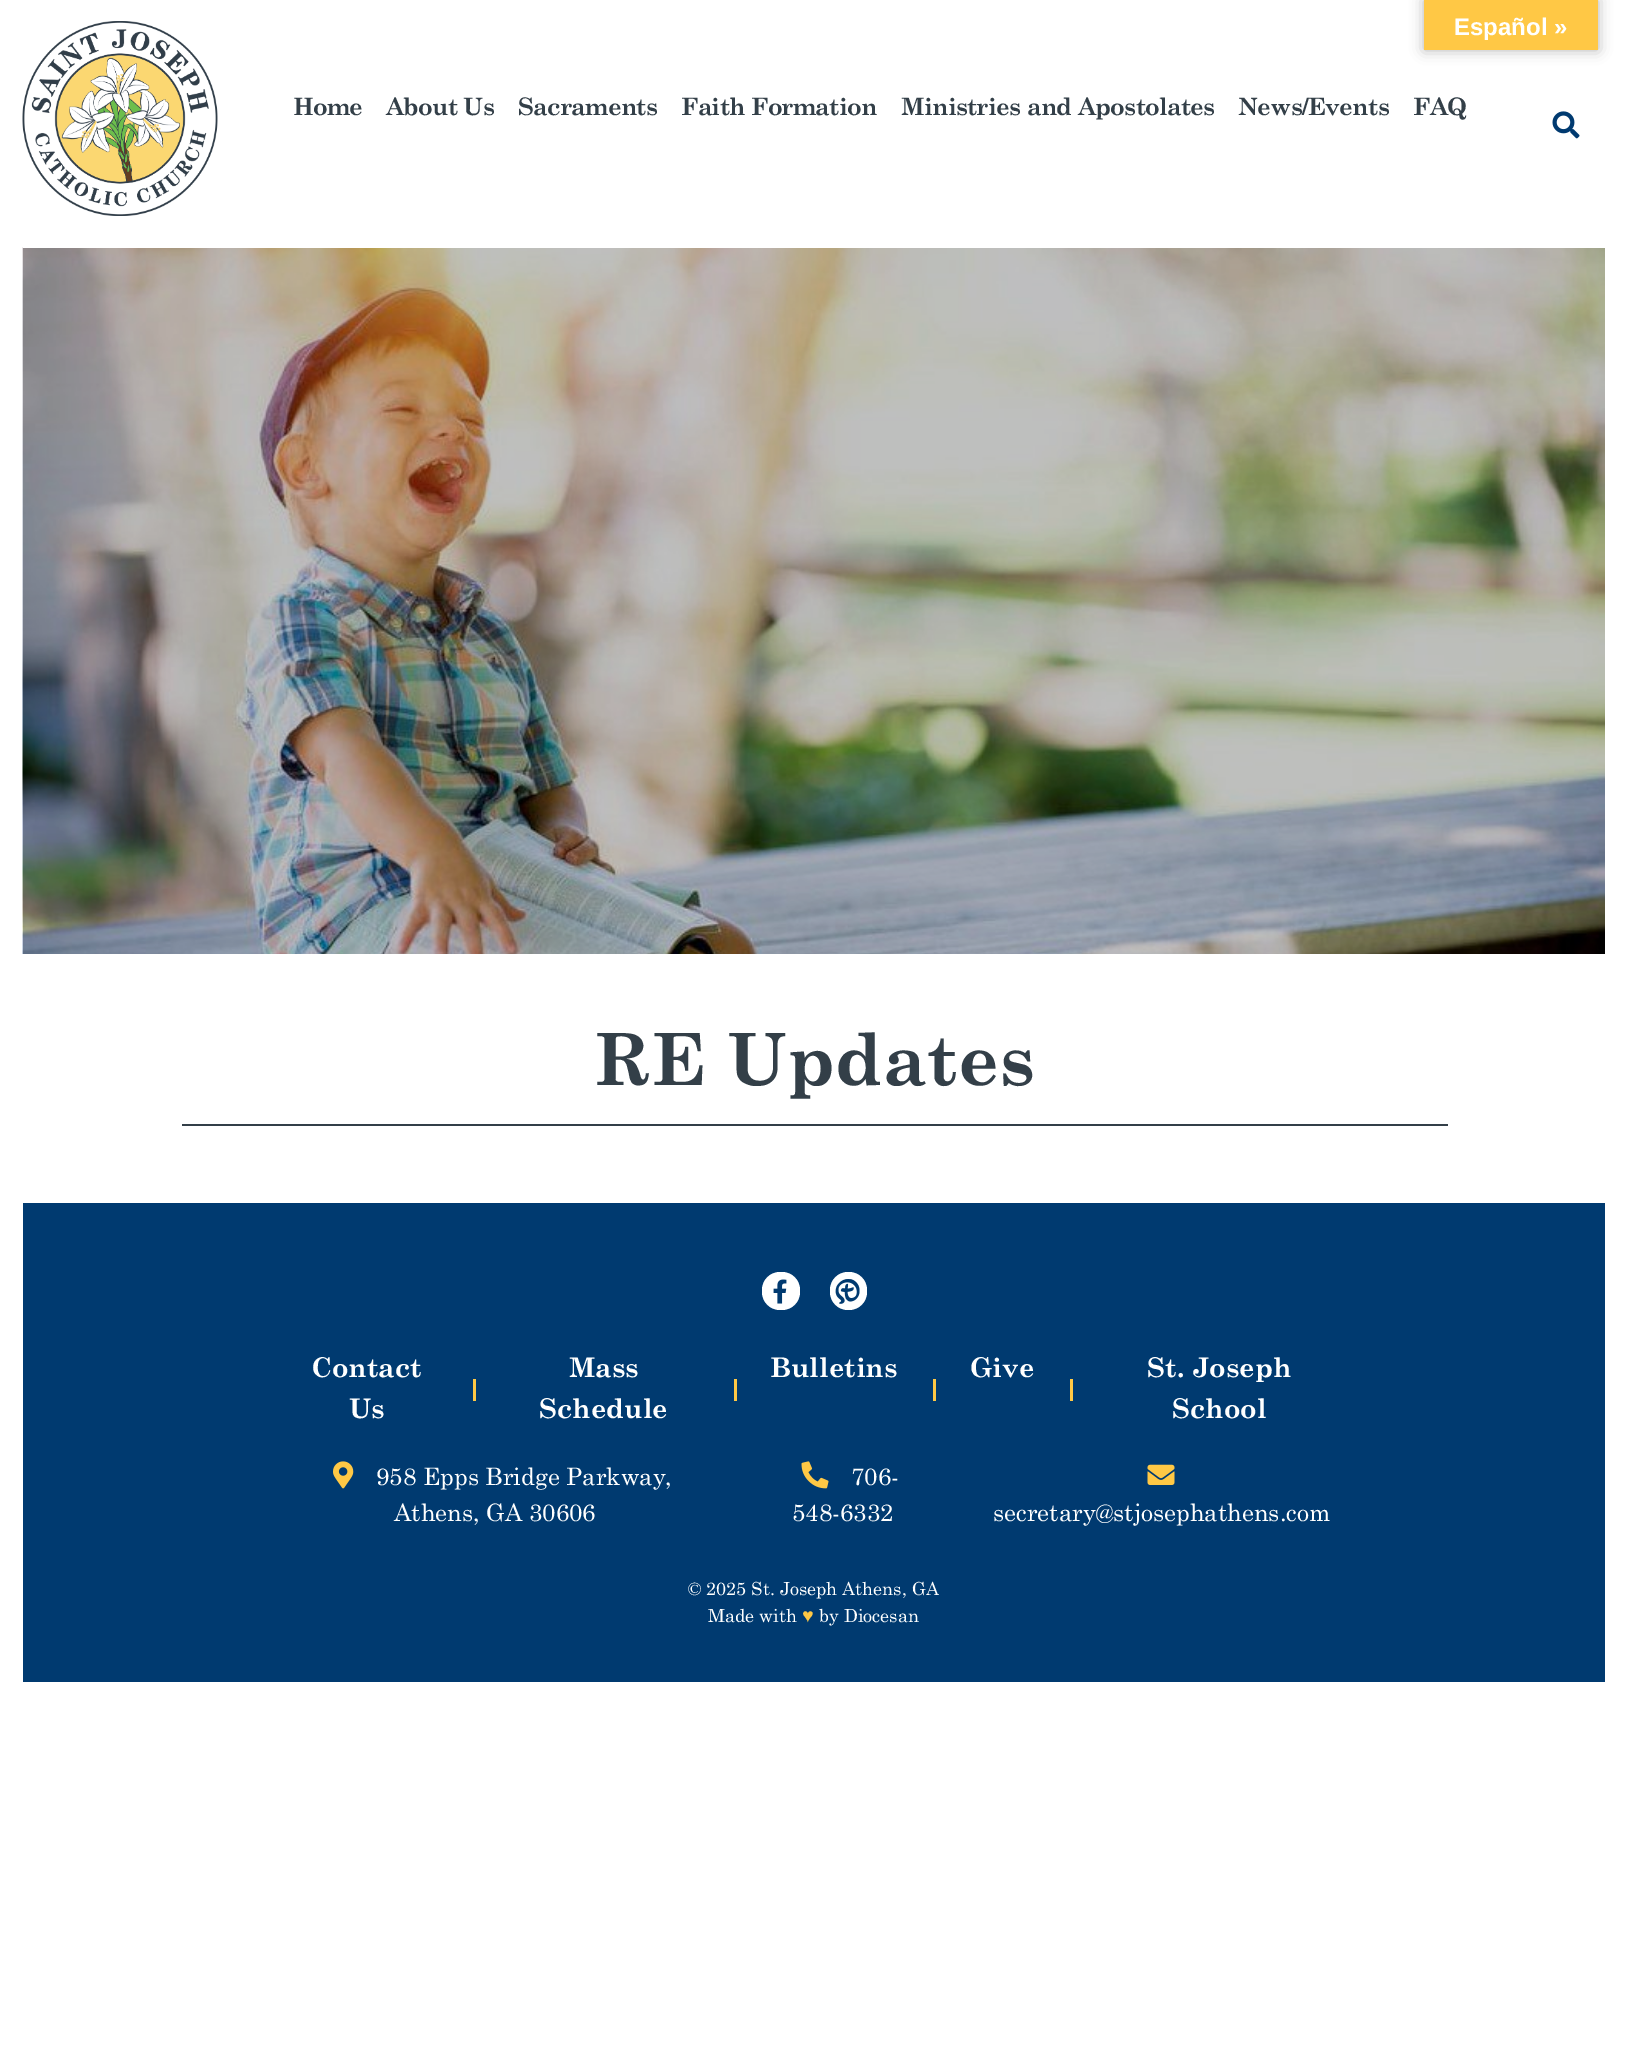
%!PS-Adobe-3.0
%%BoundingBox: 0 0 1627 2050
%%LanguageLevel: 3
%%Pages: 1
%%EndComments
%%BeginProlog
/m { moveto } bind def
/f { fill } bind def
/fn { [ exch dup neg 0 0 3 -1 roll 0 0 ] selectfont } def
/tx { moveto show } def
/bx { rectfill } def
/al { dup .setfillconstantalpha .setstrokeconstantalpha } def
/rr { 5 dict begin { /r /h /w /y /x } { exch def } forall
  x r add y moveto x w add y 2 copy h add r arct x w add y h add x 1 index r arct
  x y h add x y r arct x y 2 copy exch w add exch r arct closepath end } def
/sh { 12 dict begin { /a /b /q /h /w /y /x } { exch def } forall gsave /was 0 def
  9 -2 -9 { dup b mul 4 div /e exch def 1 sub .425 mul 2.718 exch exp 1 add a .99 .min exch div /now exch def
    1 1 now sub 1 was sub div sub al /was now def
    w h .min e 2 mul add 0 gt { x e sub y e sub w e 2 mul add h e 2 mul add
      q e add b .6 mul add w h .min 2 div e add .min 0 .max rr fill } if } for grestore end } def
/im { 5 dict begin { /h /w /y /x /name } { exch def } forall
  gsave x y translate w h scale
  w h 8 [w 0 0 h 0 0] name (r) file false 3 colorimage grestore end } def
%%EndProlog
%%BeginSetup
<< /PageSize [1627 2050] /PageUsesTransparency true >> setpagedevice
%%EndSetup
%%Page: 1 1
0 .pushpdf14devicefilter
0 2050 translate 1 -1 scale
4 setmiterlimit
1 setgray
0 0 1627 2050 bx
0 setgray
1424 0 174 50 0 7 0.3 sh
1 0.784 0.271 setrgbcolor
1424 0 174 50 bx
/LiberationSans-Bold 24 fn
1 setgray
(Español ») 1454 35 tx
(image2.raw) 22 247 1583 707 im
23 247 1582 1 bx
(image0.raw) 22 21 196 195 im
/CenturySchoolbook-Bold 24 fn
0.2 0.247 0.282 setrgbcolor
293 115 m -0.75 0 (Home) ashow
386 115 m -0.75 0 (About Us) ashow
518 115 m -0.75 0 (Sacraments) ashow
681 115 m -0.75 0 (Faith Formation) ashow
901 115 m -0.75 0 (Ministries and Apostolates) ashow
1238 115 m -0.75 0 (News/Events) ashow
1413 115 m -0.75 0 (FAQ) ashow
(image1.raw) 1552 111 28 28 im
182 1124 1266 2 bx
/CenturySchoolbook-Bold 72 fn
(RE Updates) 593 1085 tx
0 0.227 0.439 setrgbcolor
23 1203 1582 479 bx
1 setgray
762 1272 38 38 18 rr f
(image3.raw) 773 1279 14 25 im
830 1272 37 38 18 rr f
(image4.raw) 835 1279 25 25 im
/CenturySchoolbook-Bold 27 fn
(Contact) 311 1377 tx
1 0.784 0.271 setrgbcolor
473 1379 3 22 bx
1 setgray
(Us) 349 1418 tx
(Mass) 569 1377 tx
1 0.784 0.271 setrgbcolor
734 1379 3 22 bx
1 setgray
(Schedule) 539 1418 tx
(Bulletins) 770 1377 tx
1 0.784 0.271 setrgbcolor
933 1379 3 22 bx
1 setgray
(Give) 970 1377 tx
1 0.784 0.271 setrgbcolor
1070 1379 3 22 bx
1 setgray
(St. Joseph) 1147 1377 tx
(School) 1172 1418 tx
(image5.raw) 333 1461 21 28 im
/CenturySchoolbook-Regular 24 fn
(958 Epps Bridge Parkway,) 376 1485 tx
(Athens, GA 30606) 394 1521 tx
(image6.raw) 801 1461 28 28 im
(706-) 851 1485 tx
(548-6332) 792 1521 tx
(image7.raw) 1147 1464 28 21 im
(secretary@stjosephathens.com) 993 1521 tx
/CenturySchoolbook-Regular 18 fn
(© 2025 St. Joseph Athens, GA) 688 1595 tx
(Made with) 708 1622 tx
1 0.784 0.271 setrgbcolor
(♥) 802 1622 tx
1 setgray
(by Diocesan) 819 1622 tx
.poppdf14devicefilter showpage
%%EOF
